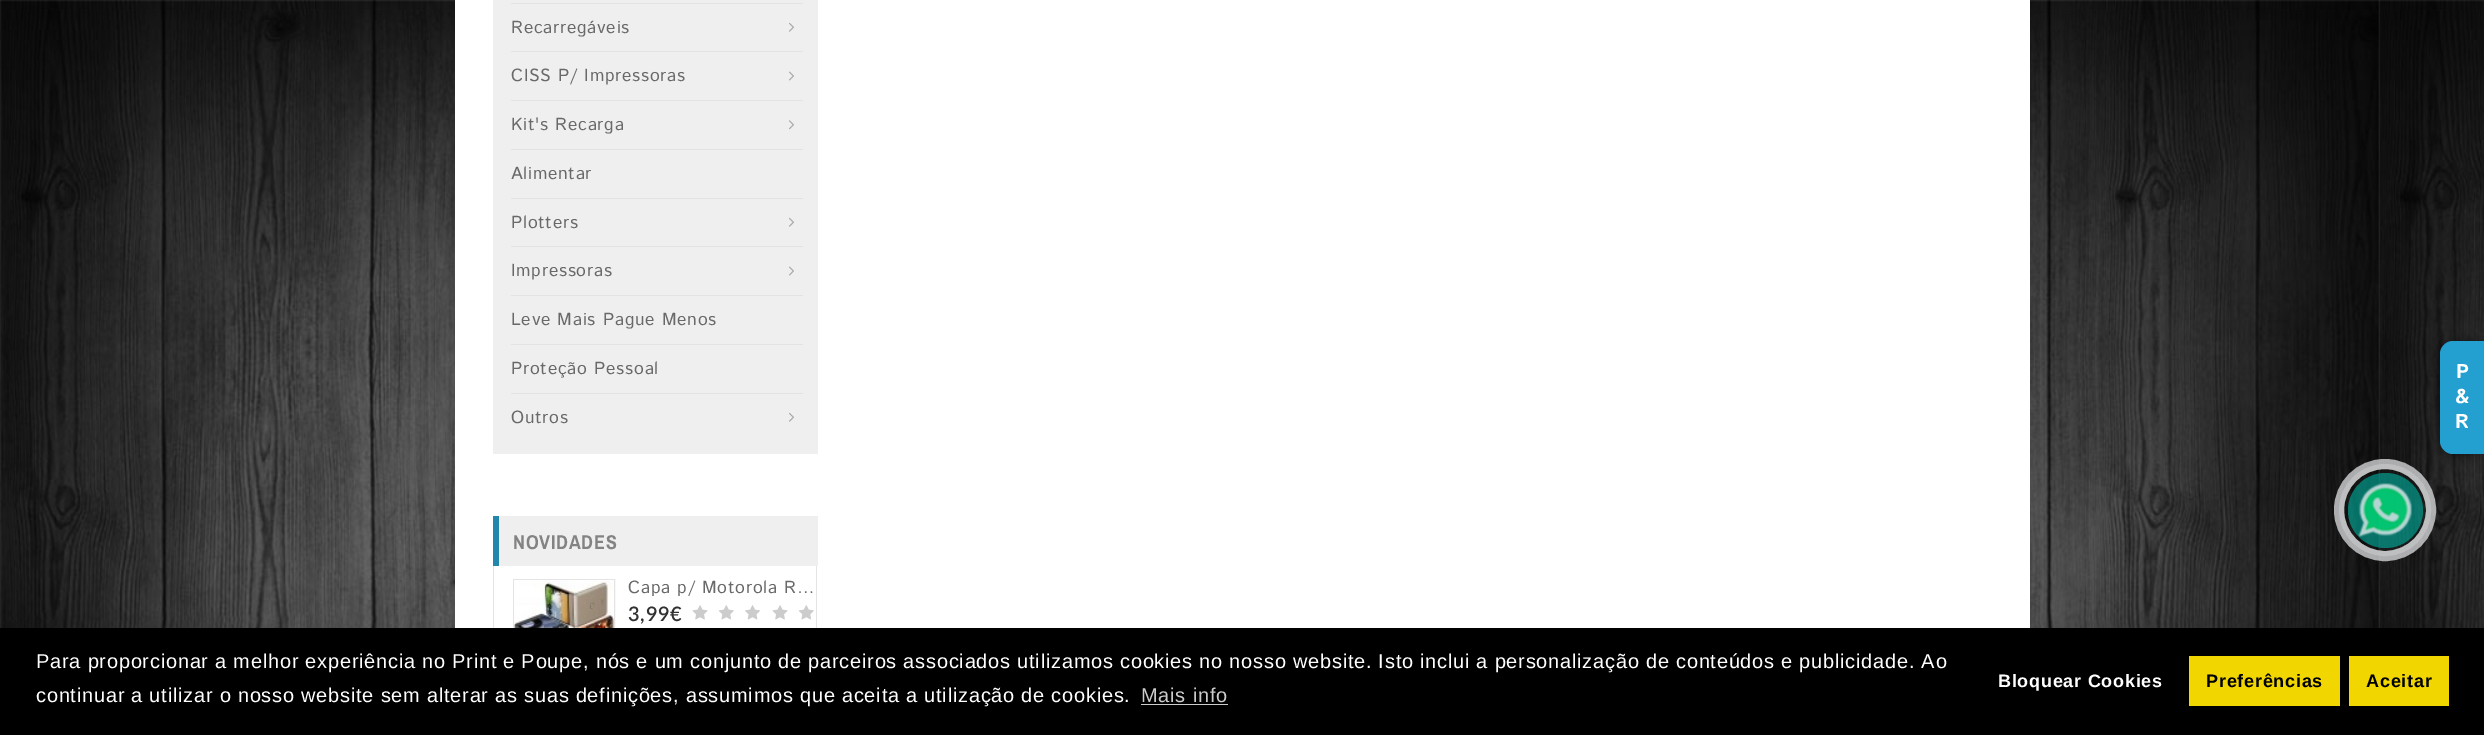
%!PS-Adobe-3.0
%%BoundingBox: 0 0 2484 735
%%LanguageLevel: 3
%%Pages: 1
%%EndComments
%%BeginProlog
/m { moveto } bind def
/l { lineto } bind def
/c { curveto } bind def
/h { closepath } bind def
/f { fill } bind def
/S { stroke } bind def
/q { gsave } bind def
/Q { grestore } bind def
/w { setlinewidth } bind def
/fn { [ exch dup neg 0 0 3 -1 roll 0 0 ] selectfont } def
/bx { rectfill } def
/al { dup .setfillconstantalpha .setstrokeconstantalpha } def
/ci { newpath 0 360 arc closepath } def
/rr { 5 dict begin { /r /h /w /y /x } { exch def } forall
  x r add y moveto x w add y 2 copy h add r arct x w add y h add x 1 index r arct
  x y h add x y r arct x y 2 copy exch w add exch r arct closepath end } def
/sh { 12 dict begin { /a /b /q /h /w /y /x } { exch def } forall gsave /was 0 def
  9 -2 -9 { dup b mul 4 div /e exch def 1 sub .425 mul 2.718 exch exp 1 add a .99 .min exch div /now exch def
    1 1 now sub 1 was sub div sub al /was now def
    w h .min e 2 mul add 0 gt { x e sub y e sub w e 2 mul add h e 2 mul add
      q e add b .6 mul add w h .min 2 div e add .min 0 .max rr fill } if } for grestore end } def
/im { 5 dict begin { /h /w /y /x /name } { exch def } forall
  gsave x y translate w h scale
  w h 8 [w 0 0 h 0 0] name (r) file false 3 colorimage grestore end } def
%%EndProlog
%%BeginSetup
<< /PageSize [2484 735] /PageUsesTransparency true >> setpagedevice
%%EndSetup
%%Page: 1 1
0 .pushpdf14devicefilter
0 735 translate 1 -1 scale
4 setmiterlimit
1 setgray
0 0 2484 735 bx
(image0.raw) 0 0 2484 628 im
455 0 1575 628 bx
0.937 setgray
493 0 325 454 bx
0.89 setgray
511 3 292 1 bx
511 51 292 1 bx
/IstokWeb-Regular 17.5 fn
0.412 setgray
511 33 m 0.75 0 (Recarregáveis) ashow
(image1.raw) 789 22 5 10 im
0.89 setgray
511 100 292 1 bx
0.412 setgray
511 81 m 0.75 0 (CISS P/ Impressoras) ashow
(image2.raw) 789 71 5 10 im
0.89 setgray
511 149 292 1 bx
0.412 setgray
511 130 m 0.75 0 (Kit's Recarga) ashow
(image3.raw) 789 120 5 10 im
0.89 setgray
511 198 292 1 bx
0.412 setgray
511 179 m 0.75 0 (Alimentar) ashow
0.89 setgray
511 246 292 1 bx
0.412 setgray
511 228 m 0.75 0 (Plotters) ashow
(image1.raw) 789 217 5 10 im
0.89 setgray
511 295 292 1 bx
0.412 setgray
511 276 m 0.75 0 (Impressoras) ashow
(image2.raw) 789 266 5 10 im
0.89 setgray
511 344 292 1 bx
0.412 setgray
511 325 m 0.75 0 (Leve Mais Pague Menos) ashow
0.89 setgray
511 393 292 1 bx
0.412 setgray
511 374 m 0.75 0 (Proteção Pessoal) ashow
511 423 m 0.75 0 (Outros) ashow
(image1.raw) 789 412 5 10 im
0.937 setgray
499 516 319 50 bx
0.137 0.529 0.678 setrgbcolor
493 516 6 50 bx
/ArchivoNarrow-Bold 20 fn
0.514 setgray
513 549 m 0.75 0 (NOVIDADES) ashow
0.894 setgray
816 566 1 62 bx
493 566 1 62 bx
513.5 579.5 101 101 rectstroke
(image4.raw) 514 580 100 48 im
q
628 579 188 17 rectclip
/IstokWeb-Regular 17.5 fn
0.412 setgray
628 593 m 0.75 0 (Capa p/ Motorola R…) ashow
Q
/Lato-SemiBold 20 fn
0.192 setgray
628 621 m 0.75 0 (3,99€) ashow
(image5.raw) 692 605 16 15 im
(image6.raw) 718 605 16 15 im
(image7.raw) 745 605 15 15 im
(image5.raw) 772 605 16 15 im
(image6.raw) 798 605 16 15 im
0.6 al
0 0.702 0.635 setrgbcolor
2385.5 510.5 37.5 ci f
0.7 al
0.412 setgray
5 w
2385 510 43.5 ci S
0.925 0.929 0.937 setrgbcolor
10 w
2385 510 46 ci S
1 al
0 setgray
2440 343 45 112 13 4.5 0.5 sh
0.137 0.627 0.812 setrgbcolor
2453 341 m 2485 341 l 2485 454 l 2453 454 l 2446 454 2440 448 2440 441 c 2440 354 l 2440 347 2446 341 2453 341 c h f
/IstokWeb-Bold 20 fn
1 setgray
2456 378 m 0.75 0 (P) ashow
2455 403 m 0.75 0 (&) ashow
2455 428 m 0.75 0 (R) ashow
(image8.raw) 2358 483 54 54 im
0 setgray
0 628 2484 107 bx
/LiberationSans-Regular 20 fn
1 setgray
36 668 m 0.75 0 (Para proporcionar a melhor experiência no Print e Poupe, nós e um conjunto de parceiros associados utilizamos cookies no nosso website. Isto inclui a personalização de conteúdos e publicidade. Ao) ashow
36 702 m 0.75 0 (continuar a utilizar o nosso website sem alterar as suas definições, assumimos que aceita a utilização de cookies.) ashow
0.8 setgray
1141 702 m 0.75 0 (Mais info) ashow
1141 704 87 1 bx
/LiberationSans-Bold 18 fn
1 setgray
1998 687 m 0.75 0 (Bloquear Cookies) ashow
0.945 0.839 0 setrgbcolor
2189 656 151 50 bx
0 setgray
2206 687 m 0.75 0 (Preferências) ashow
0.945 0.839 0 setrgbcolor
2349 656 100 50 bx
0 setgray
2366 687 m 0.75 0 (Aceitar) ashow
.poppdf14devicefilter showpage
%%EOF
